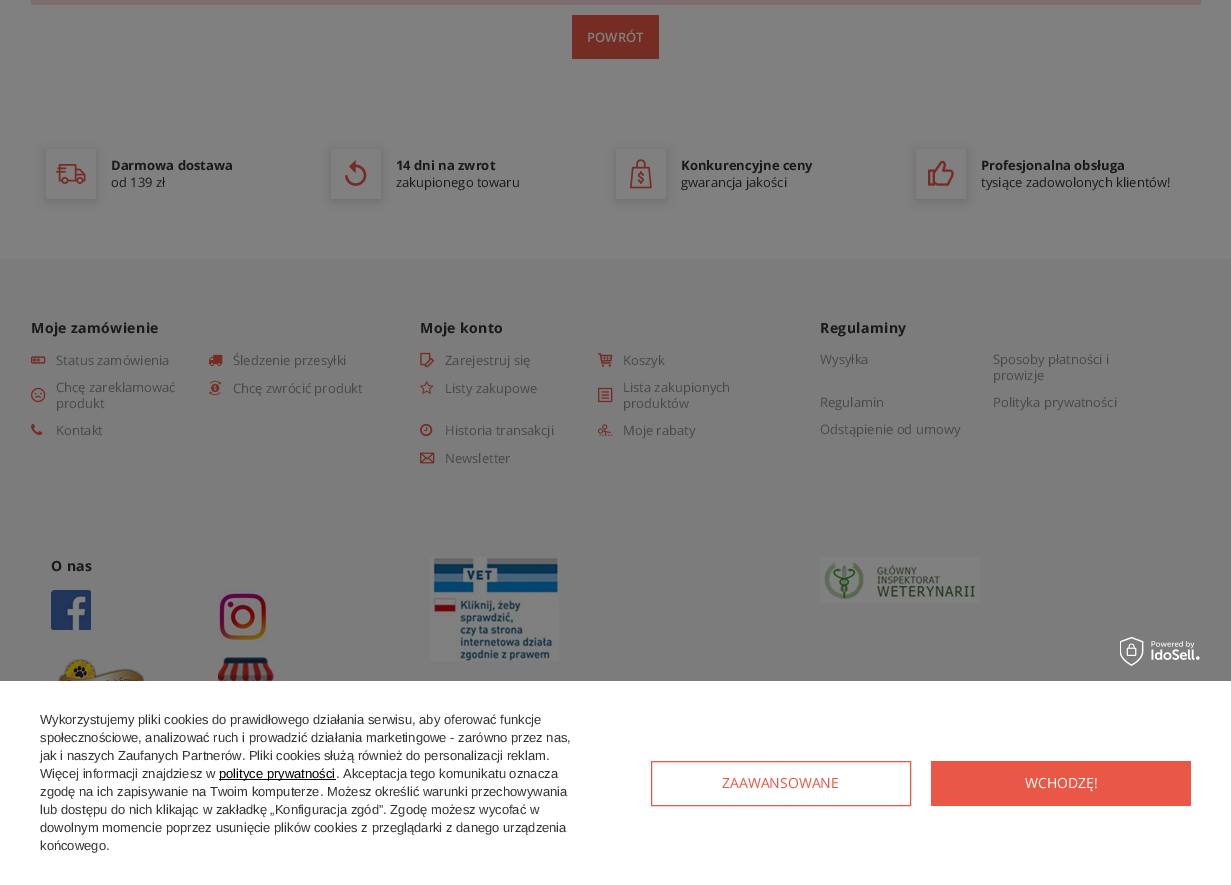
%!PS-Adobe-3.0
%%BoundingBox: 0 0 1231 885
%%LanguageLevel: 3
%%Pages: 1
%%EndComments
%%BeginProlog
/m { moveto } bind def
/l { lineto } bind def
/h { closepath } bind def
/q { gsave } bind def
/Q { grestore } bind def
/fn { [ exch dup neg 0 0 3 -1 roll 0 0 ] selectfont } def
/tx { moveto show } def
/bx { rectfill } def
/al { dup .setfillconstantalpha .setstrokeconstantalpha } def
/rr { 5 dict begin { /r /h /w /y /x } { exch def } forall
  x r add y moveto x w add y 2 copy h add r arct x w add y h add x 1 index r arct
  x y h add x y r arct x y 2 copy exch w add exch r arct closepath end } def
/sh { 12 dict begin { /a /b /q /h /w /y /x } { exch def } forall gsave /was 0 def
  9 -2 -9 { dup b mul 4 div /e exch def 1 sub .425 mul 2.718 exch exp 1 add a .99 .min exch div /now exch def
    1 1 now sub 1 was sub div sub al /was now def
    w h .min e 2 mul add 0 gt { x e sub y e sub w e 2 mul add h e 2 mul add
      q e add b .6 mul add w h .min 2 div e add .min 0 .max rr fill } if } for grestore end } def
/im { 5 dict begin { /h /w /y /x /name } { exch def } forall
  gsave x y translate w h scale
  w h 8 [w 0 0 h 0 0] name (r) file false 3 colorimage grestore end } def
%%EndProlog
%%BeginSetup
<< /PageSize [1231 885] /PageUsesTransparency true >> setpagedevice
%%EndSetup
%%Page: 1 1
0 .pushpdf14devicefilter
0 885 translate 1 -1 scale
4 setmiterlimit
0.502 setgray
0 0 1231 885 bx
0.486 0.424 0.427 setrgbcolor
31 0 1170 5 bx
0.459 0.173 0.137 setrgbcolor
572 15 87 44 bx
/OpenSans-SemiBold 13 fn
0.502 setgray
(POWRÓT) 587 42 tx
q
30 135 m 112 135 l 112 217 l 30 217 l h 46 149 m 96 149 l 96 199 l 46 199 l h eoclip newpath
0 setgray
46 151 50 50 0 5 0.15 sh
Q
(image0.raw) 56 164 30 20 im
/OpenSans-Bold 13 fn
0.102 setgray
(Darmowa dostawa) 111 170 tx
/OpenSans-Regular 13 fn
(od 139 zł) 111 187 tx
q
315 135 m 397 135 l 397 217 l 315 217 l h 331 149 m 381 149 l 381 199 l 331 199 l h eoclip newpath
0 setgray
331 151 50 50 0 5 0.15 sh
Q
(image1.raw) 345 160 22 26 im
/OpenSans-Bold 13 fn
(14 dni na zwrot) 396 170 tx
/OpenSans-Regular 13 fn
(zakupionego towaru) 396 187 tx
q
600 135 m 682 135 l 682 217 l 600 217 l h 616 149 m 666 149 l 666 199 l 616 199 l h eoclip newpath
0 setgray
616 151 50 50 0 5 0.15 sh
Q
(image2.raw) 630 159 22 30 im
/OpenSans-Bold 13 fn
(Konkurencyjne ceny) 681 170 tx
/OpenSans-Regular 13 fn
(gwarancja jakości) 681 187 tx
q
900 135 m 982 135 l 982 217 l 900 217 l h 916 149 m 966 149 l 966 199 l 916 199 l h eoclip newpath
0 setgray
916 151 50 50 0 5 0.15 sh
Q
(image3.raw) 928 160 26 26 im
/OpenSans-Bold 13 fn
(Profesjonalna obsługa) 981 170 tx
/OpenSans-Regular 13 fn
(tysiące zadowolonych klientów!) 981 187 tx
0.486 setgray
1201 259 30 422 bx
0 259 1201 422 bx
/OpenSans-Bold 14 fn
0.102 setgray
31 333 m 0.4 0 (Moje zamówienie) ashow
(image4.raw) 31 356 15 8 im
/OpenSans-Regular 13 fn
0.286 0.282 0.282 setrgbcolor
(Status zamówienia) 56 365 tx
(image5.raw) 208 354 15 13 im
(Śledzenie przesyłki) 233 365 tx
(image6.raw) 31 387 15 16 im
(Chcę zareklamować) 56 392 tx
(produkt) 56 408 tx
(image7.raw) 209 380 12 16 im
(Chcę zwrócić produkt) 233 393 tx
(image8.raw) 31 423 12 13 im
(Kontakt) 56 435 tx
/OpenSans-Bold 14 fn
0.102 setgray
420 333 m 0.4 0 (Moje konto) ashow
(image9.raw) 420 352 14 16 im
/OpenSans-Regular 13 fn
0.286 0.282 0.282 setrgbcolor
(Zarejestruj się) 445 365 tx
(image10.raw) 598 353 15 14 im
(Koszyk) 623 365 tx
(image11.raw) 420 381 14 13 im
(Listy zakupowe) 445 393 tx
(image12.raw) 598 387 15 16 im
(Lista zakupionych) 623 392 tx
(produktów) 623 408 tx
(image13.raw) 420 423 13 14 im
(Historia transakcji) 445 435 tx
(image14.raw) 598 424 15 12 im
(Moje rabaty) 623 435 tx
(image15.raw) 420 452 15 12 im
(Newsletter) 445 463 tx
/OpenSans-Bold 14 fn
0.102 setgray
820 333 m 0.4 0 (Regulaminy) ashow
/OpenSans-Regular 13 fn
0.286 0.282 0.282 setrgbcolor
(Wysyłka) 820 364 tx
(Sposoby płatności i) 993 364 tx
(prowizje) 993 380 tx
(Regulamin) 820 407 tx
(Polityka prywatności) 993 407 tx
(Odstąpienie od umowy) 820 434 tx
/OpenSans-Bold 14 fn
0.102 setgray
51 571 m 0.4 0 (O nas) ashow
(image16.raw) 51 590 40 40 im
(image17.raw) 218 590 50 52 im
(image18.raw) 58 658 87 23 im
(image19.raw) 218 657 56 24 im
(image20.raw) 430 557 129 104 im
(image21.raw) 820 557 160 46 im
1 setgray
0 681 1231 204 bx
(image22.raw) 1120 637 80 29 im
/LiberationSans-Regular 13 fn
0.2 setgray
(Wykorzystujemy pliki cookies do prawidłowego działania serwisu, aby oferować funkcje) 40 724 tx
(społecznościowe, analizować ruch i prowadzić działania marketingowe - zarówno przez nas,) 40 742 tx
(jak i naszych Zaufanych Partnerów. Pliki cookies służą również do personalizacji reklam.) 40 760 tx
(Więcej informacji znajdziesz w) 40 778 tx
0 setgray
219 779 117 1 bx
(polityce prywatności) 219 778 tx
0.2 setgray
(. Akceptacja tego komunikatu oznacza) 336 778 tx
(zgodę na ich zapisywanie na Twoim komputerze. Możesz określić warunki przechowywania) 40 796 tx
(lub dostępu do nich klikając w zakładkę „Konfiguracja zgód”. Zgodę możesz wycofać w) 40 814 tx
(dowolnym momencie poprzez usunięcie plików cookies z przeglądarki z danego urządzenia) 40 832 tx
(końcowego.) 40 850 tx
0.914 0.341 0.275 setrgbcolor
651.5 761.5 259 44 rectstroke
/OpenSans-Regular 14 fn
(ZAAWANSOWANE) 722 788 tx
931 761 260 45 bx
1 setgray
(WCHODZĘ!) 1025 788 tx
.poppdf14devicefilter showpage
%%EOF
